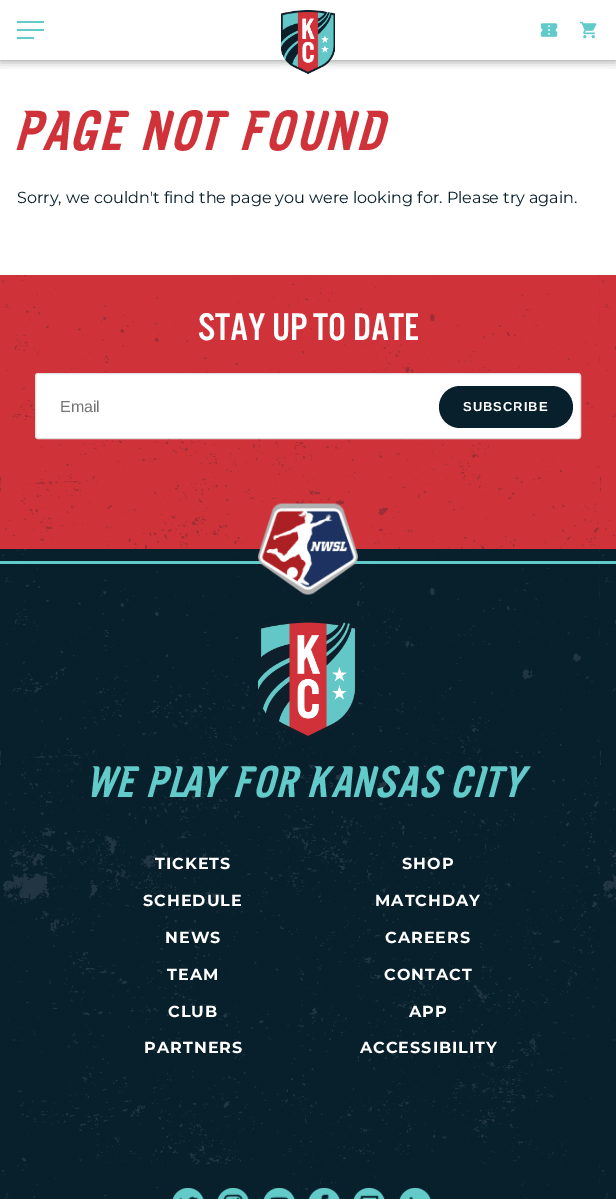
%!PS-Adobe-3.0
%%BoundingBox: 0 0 616 1199
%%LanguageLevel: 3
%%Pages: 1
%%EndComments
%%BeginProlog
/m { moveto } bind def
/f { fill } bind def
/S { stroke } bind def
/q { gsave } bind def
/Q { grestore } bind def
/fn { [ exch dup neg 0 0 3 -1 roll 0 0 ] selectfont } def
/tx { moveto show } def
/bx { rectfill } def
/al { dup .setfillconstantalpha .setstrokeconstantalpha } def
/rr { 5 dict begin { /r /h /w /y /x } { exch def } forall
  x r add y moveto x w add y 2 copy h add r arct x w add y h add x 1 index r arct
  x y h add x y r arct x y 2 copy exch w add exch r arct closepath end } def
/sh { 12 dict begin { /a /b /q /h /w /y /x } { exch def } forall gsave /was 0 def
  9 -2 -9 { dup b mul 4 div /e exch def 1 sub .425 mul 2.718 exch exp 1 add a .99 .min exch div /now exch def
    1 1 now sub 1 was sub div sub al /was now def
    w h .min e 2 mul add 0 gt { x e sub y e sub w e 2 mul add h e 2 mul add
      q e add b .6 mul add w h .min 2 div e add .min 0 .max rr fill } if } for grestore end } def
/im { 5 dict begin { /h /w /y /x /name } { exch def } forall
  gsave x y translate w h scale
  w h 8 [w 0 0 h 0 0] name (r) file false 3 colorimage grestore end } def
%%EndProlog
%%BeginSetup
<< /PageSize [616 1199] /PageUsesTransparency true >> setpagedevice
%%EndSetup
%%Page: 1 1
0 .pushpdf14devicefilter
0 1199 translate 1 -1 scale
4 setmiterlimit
1 setgray
0 0 616 1199 bx
q
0 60 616 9 rectclip
0 setgray
0 0 616 60 0 5 0.5 sh
Q
0.384 0.796 0.788 setrgbcolor
17 21 27 2 bx
17 29 27 2 bx
17 37 17 2 bx
(image0.raw) 281 10 54 64 im
(image1.raw) 540 23 18 14 im
(image2.raw) 579 21 18 18 im
/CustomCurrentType-Regular 56 fn
0.812 0.2 0.224 setrgbcolor
(PAGE NOT FOUND) 17 150 tx
/Montserrat-Regular 16 fn
0.031 0.122 0.173 setrgbcolor
(Sorry, we couldn't find the page you were looking for. Please try again.) 17 203 tx
0.812 0.2 0.224 setrgbcolor
0 275 616 274 bx
(image3.raw) 0 275 616 274 im
/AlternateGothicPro-Regular 40 fn
1 setgray
(STAY UP TO DATE) 198 340 tx
35.5 373.5 545 65 2.5 rr q f Q
0.882 0.875 0.867 setrgbcolor
S
/LiberationSans-Regular 16 fn
0.459 setgray
(Email) 60 412 tx
0.031 0.122 0.173 setrgbcolor
439 386 134 42 21 rr f
/LiberationSans-Bold 13 fn
1 setgray
463 411 m 1 0 (SUBSCRIBE) ashow
0.031 0.122 0.173 setrgbcolor
0 549 616 650 bx
(image5.raw) 0 549 616 650 im
0.384 0.796 0.788 setrgbcolor
0 561 616 3 bx
(image4.raw) 258 503 100 92 im
(image6.raw) 258 619 100 121 im
/CustomCurrentType-Regular 44 fn
89 797 m -0.9 0 (WE PLAY FOR KANSAS CITY) ashow
/Montserrat-Bold 16 fn
1 setgray
155 869 m 1 0 (TICKETS) ashow
143 906 m 1 0 (SCHEDULE) ashow
165 943 m 1 0 (NEWS) ashow
167 980 m 1 0 (TEAM) ashow
168 1017 m 1 0 (CLUB) ashow
144 1053 m 1 0 (PARTNERS) ashow
402 869 m 1 0 (SHOP) ashow
375 906 m 1 0 (MATCHDAY) ashow
385 943 m 1 0 (CAREERS) ashow
384 980 m 1 0 (CONTACT) ashow
409 1017 m 1 0 (APP) ashow
360 1053 m 1 0 (ACCESSIBILITY) ashow
(image7.raw) 172 1188 32 11 im
(image8.raw) 217 1188 32 11 im
(image9.raw) 263 1188 32 11 im
(image10.raw) 308 1188 32 11 im
(image11.raw) 353 1188 32 11 im
(image12.raw) 399 1188 32 11 im
.poppdf14devicefilter showpage
%%EOF
